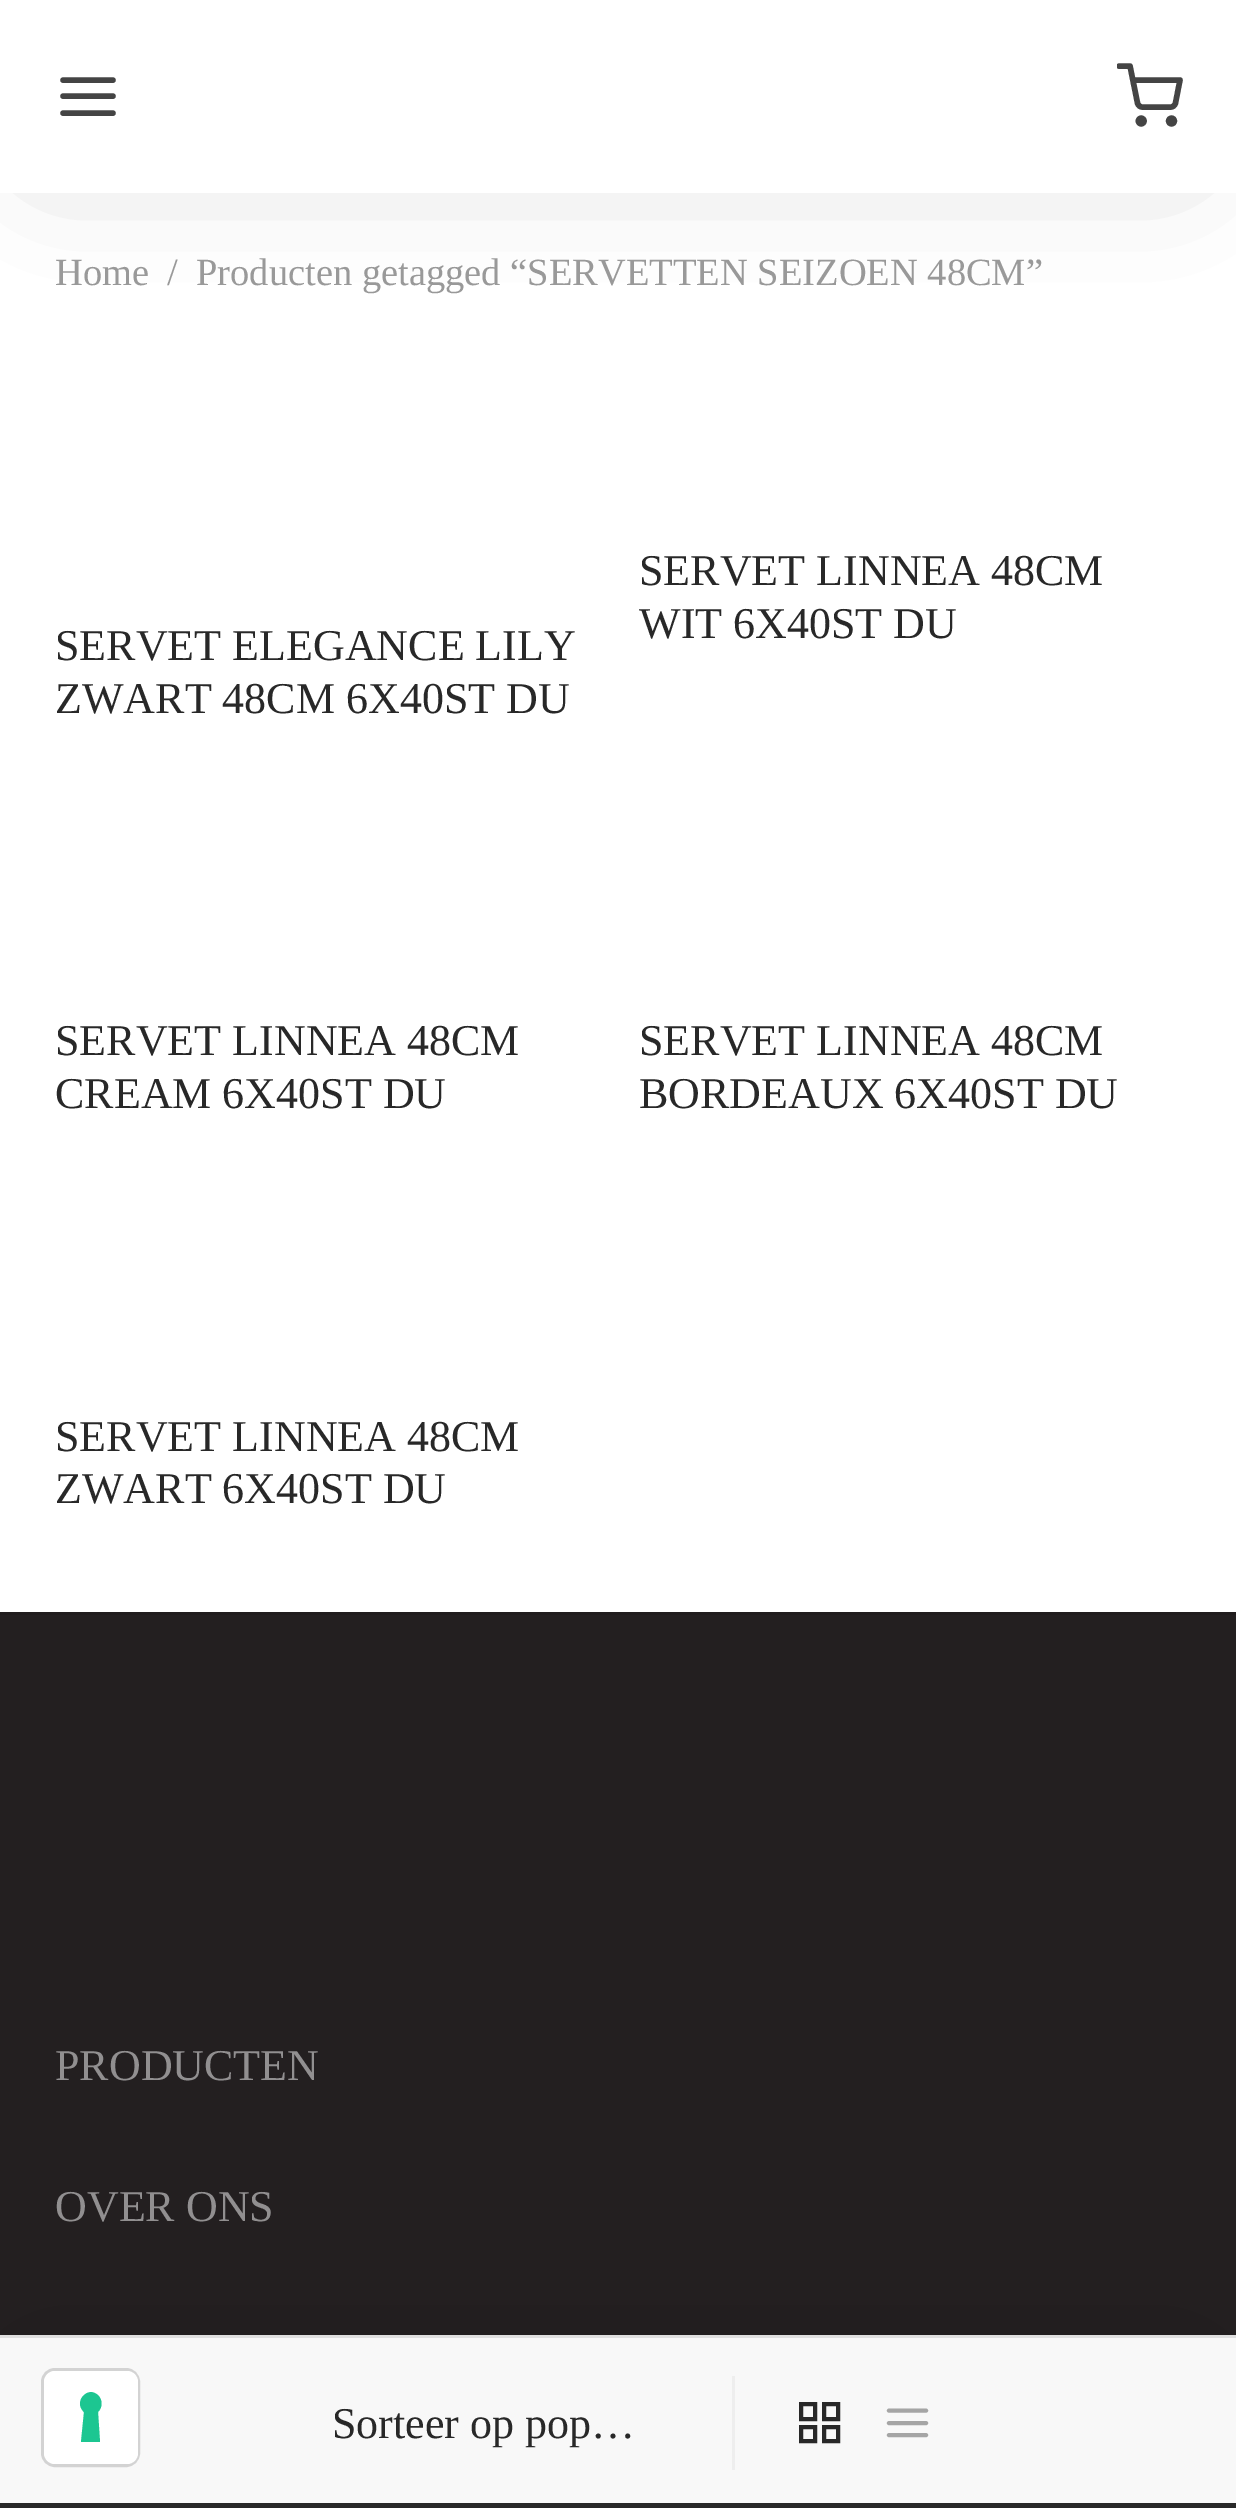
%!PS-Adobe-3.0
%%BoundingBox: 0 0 1236 2508
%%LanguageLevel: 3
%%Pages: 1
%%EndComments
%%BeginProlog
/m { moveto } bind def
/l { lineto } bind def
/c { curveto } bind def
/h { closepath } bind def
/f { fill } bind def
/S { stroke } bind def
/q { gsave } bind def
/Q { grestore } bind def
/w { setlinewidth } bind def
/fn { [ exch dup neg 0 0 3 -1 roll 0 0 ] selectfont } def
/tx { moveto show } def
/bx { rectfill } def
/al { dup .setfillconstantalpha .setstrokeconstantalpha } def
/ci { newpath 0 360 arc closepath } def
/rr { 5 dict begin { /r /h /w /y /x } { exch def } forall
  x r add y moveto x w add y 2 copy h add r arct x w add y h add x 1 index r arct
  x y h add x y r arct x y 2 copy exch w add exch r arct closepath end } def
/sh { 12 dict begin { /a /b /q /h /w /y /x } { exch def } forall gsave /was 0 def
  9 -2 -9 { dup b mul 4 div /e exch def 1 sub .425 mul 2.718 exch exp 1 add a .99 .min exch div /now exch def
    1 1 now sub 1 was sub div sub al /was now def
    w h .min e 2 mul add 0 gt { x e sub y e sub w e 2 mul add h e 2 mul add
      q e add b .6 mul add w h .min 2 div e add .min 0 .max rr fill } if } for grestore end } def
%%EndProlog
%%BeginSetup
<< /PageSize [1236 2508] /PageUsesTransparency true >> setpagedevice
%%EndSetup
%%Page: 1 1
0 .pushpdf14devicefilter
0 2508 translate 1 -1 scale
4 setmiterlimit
1 setgray
0 0 1236 2508 bx
0 setgray
50 61 1127 82 0 62 0.3 sh
1 setgray
0 0 1236 193 bx
0.267 setgray
5.5 w
1 setlinecap
1 setlinejoin
63 96 m 113 96 l 63 80 m 113 80 l 63 113 m 113 113 l S
0 setlinecap
0 setlinejoin
1141.2 121 2.8 ci S
1171.5 121 2.8 ci S
q
1117 63 66 66 rectclip
1 setlinecap
1 setlinejoin
1119 66 m 1130 66 l 1137.5 103 l 1138 105.5 1140.5 107.5 1143 107 c 1170 107 l 1172.5 107.5 1175 105.5 1175.5 103 c 1180 80 l 1133 80 l S
Q
/LiberationSerif-Regular 38.5 fn
0.6 setgray
(Home) 55 285 tx
(/) 167 285 tx
(Producten getagged “SERVETTEN SEIZOEN 48CM”) 196 285 tx
0.137 0.122 0.125 setrgbcolor
0 1615 1236 720 bx
0 setgray
36 2382 1155 90 0 62 0.3 sh
0.973 setgray
0 2338 1236 165 bx
0.875 setgray
0 2335 1236 3 bx
0.933 setgray
732 2376 3 94 bx
0.157 setgray
4 w
801 2404 14 15 rectstroke
824 2404 14 15 rectstroke
801 2427 14 14 rectstroke
824 2427 14 14 rectstroke
0 2503 1236 5 bx
0.647 setgray
4.1 w
1 setlinecap
1 setlinejoin
889 2423 m 926 2423 l 889 2410.5 m 926 2410.5 l 889 2435 m 926 2435 l S
/LiberationSerif-Regular 44 fn
0.157 setgray
(Sorteer op pop…) 332 2438 tx
(SERVET LINNEA 48CM) 639 585 tx
(WIT 6X40ST DU) 639 638 tx
(SERVET ELEGANCE LILY) 55 660 tx
(ZWART 48CM 6X40ST DU) 55 713 tx
(SERVET LINNEA 48CM) 55 1055 tx
(CREAM 6X40ST DU) 55 1108 tx
(SERVET LINNEA 48CM) 639 1055 tx
(BORDEAUX 6X40ST DU) 639 1108 tx
(SERVET LINNEA 48CM) 55 1451 tx
(ZWART 6X40ST DU) 55 1503 tx
0.125 0.11 0.114 setrgbcolor
0 1612 1236 3 bx
0.569 0.561 0.565 setrgbcolor
(PRODUCTEN) 55 2080 tx
(OVER ONS) 55 2221 tx
0.827 setgray
3 w
0 setlinecap
0 setlinejoin
42.5 2369.5 96 96 12.5 rr S
1 setgray
44 2371 94 93 11 rr f
0.11 0.776 0.569 setrgbcolor
91 2392 m 101 2393 105 2405 98 2412 c 100 2442 l 81 2442 l 84 2412 l 76 2405 81 2393 91 2392 c h eofill
.poppdf14devicefilter showpage
%%EOF
